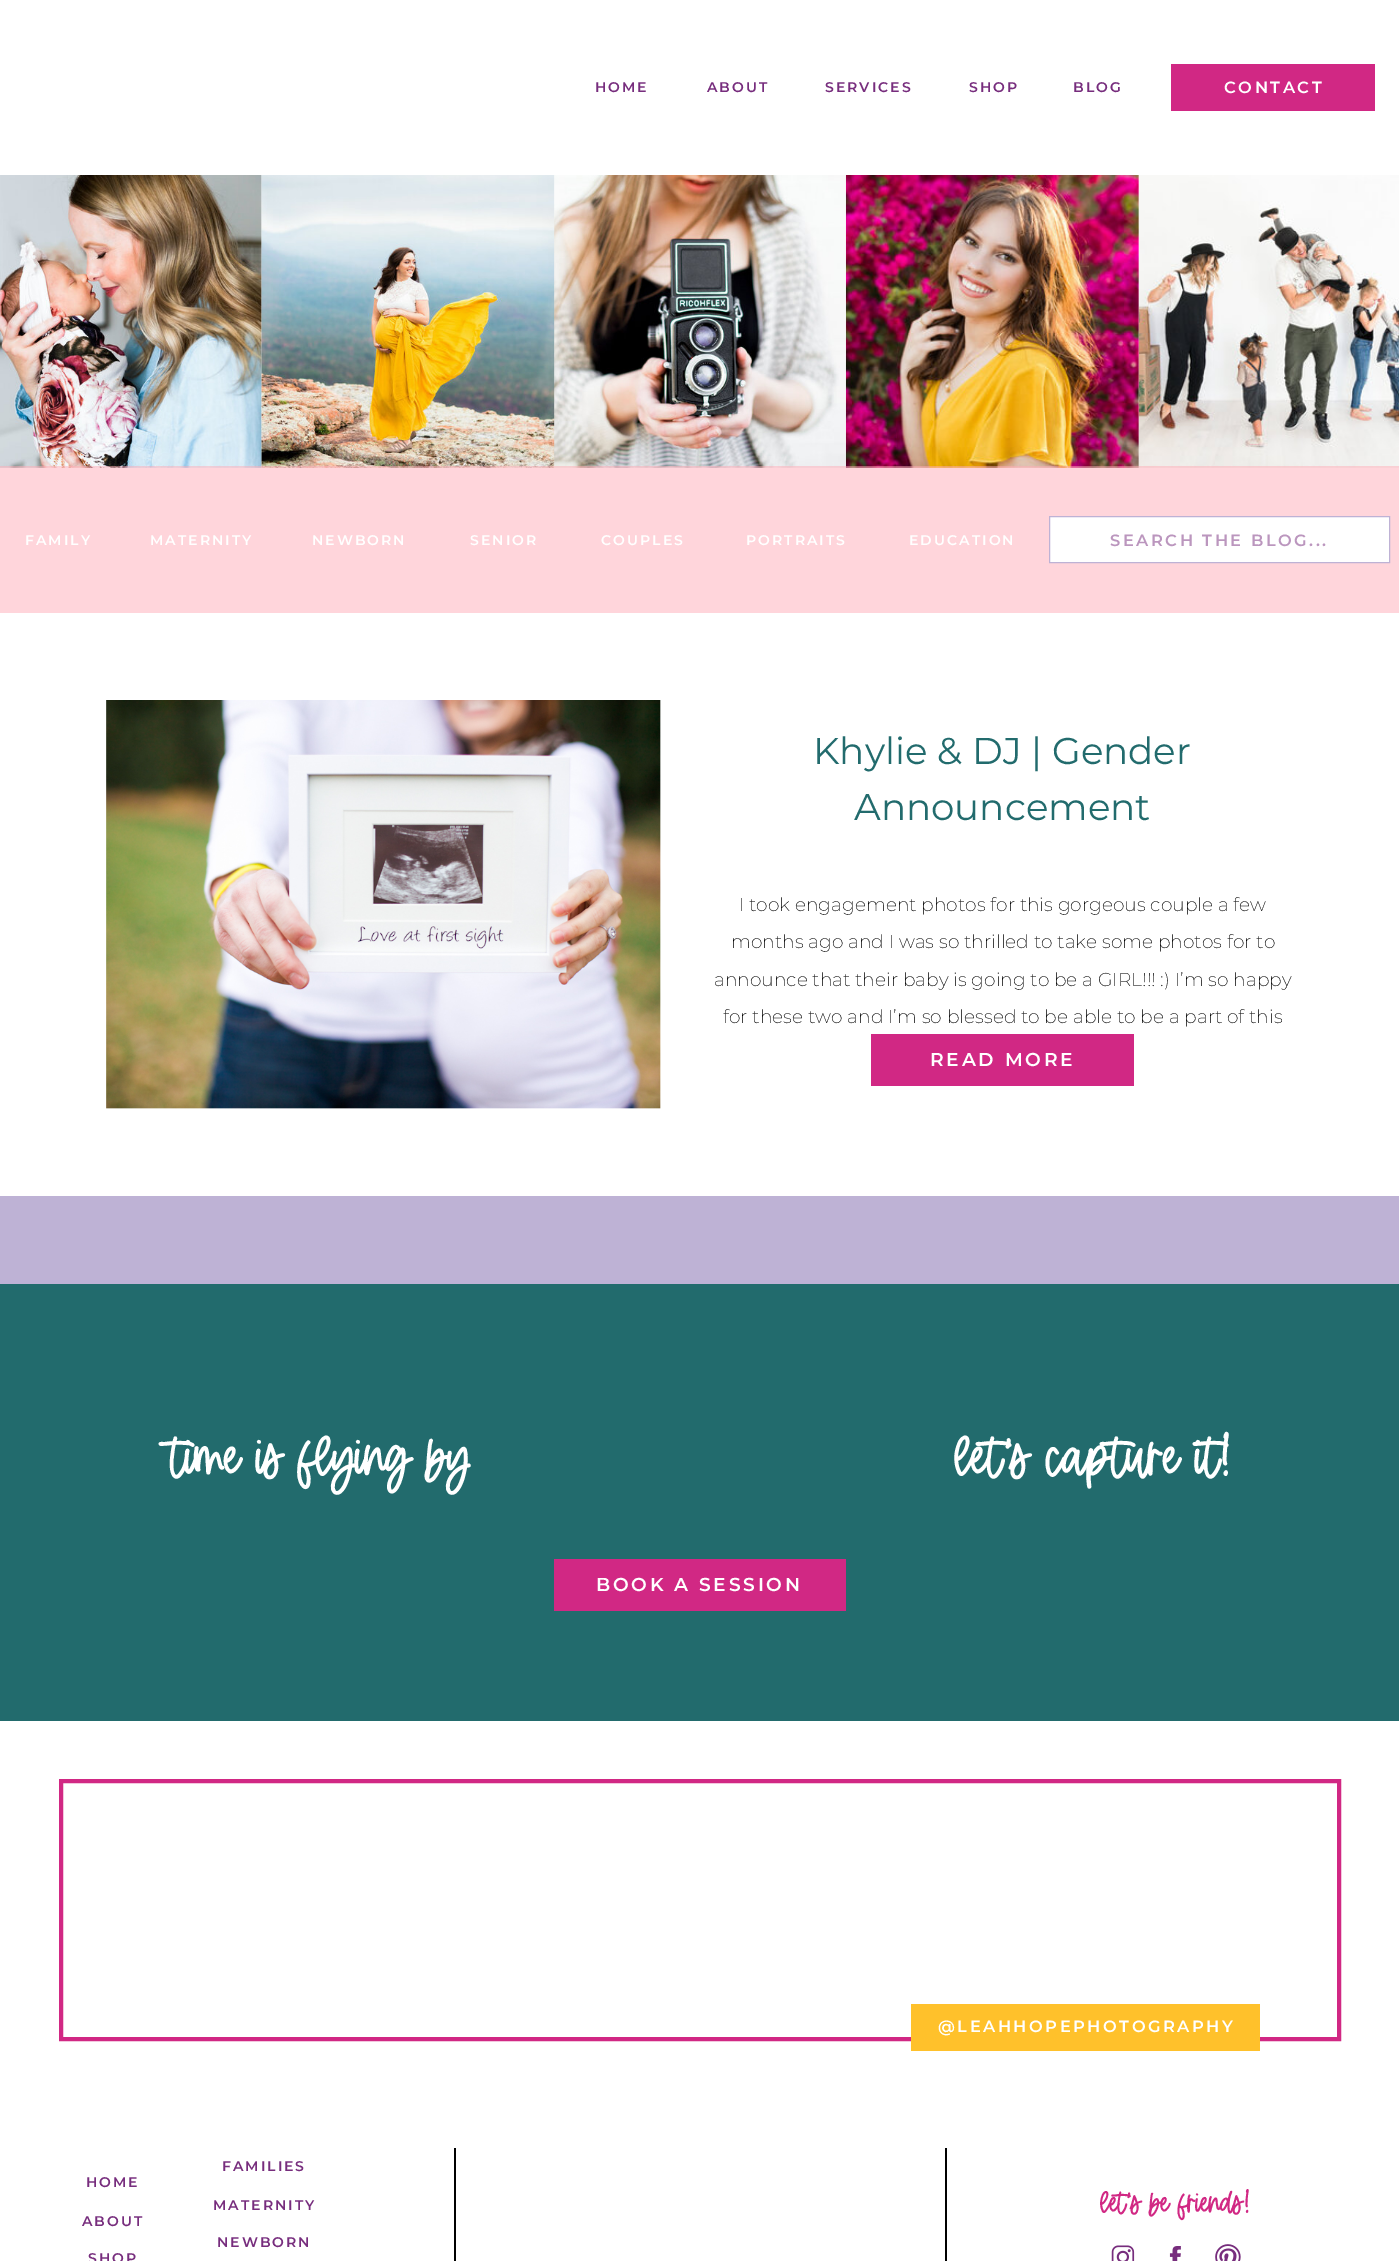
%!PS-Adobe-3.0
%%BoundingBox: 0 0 1399 2261
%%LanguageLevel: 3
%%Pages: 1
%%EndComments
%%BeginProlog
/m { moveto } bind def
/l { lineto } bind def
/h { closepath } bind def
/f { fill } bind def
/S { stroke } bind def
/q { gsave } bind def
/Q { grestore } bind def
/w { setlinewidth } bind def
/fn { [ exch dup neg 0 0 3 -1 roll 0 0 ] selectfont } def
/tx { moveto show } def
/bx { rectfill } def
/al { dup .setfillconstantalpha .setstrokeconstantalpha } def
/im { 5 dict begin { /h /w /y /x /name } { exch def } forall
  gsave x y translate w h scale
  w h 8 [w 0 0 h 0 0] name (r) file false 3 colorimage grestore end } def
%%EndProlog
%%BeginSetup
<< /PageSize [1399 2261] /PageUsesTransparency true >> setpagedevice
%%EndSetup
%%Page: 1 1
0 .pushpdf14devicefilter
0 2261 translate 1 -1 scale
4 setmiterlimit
1 setgray
0 0 1399 2261 bx
0.82 0.157 0.518 setrgbcolor
1171 64 204 47 bx
/Montserrat-SemiBold 14 fn
0.467 0.176 0.49 setrgbcolor
595 92 m 2 0 (HOME) ashow
707 92 m 2 0 (ABOUT) ashow
825 92 m 2 0 (SERVICES) ashow
969 92 m 2 0 (SHOP) ashow
1073 92 m 2 0 (BLOG) ashow
/Montserrat-SemiBold 16.3 fn
1 setgray
1224 93 m 2.5 0 (CONTACT) ashow
(image4.raw) 1138 175 261 293 im
(image3.raw) 845 175 294 293 im
(image2.raw) 553 175 293 293 im
(image1.raw) 261 175 294 293 im
(image0.raw) 0 175 262 293 im
0.5 al
1 0.675 0.718 setrgbcolor
0 466 1399 147 bx
1 al
1 setgray
1049.5 516.5 m 1389.5 516.5 l 1389.5 562.5 l 1049.5 562.5 l h q f Q
0.745 0.698 0.835 setrgbcolor
S
/Montserrat-SemiBold 14 fn
1 setgray
25 545 m 2 0 (FAMILY) ashow
150 545 m 2 0 (MATERNITY) ashow
312 545 m 2 0 (NEWBORN) ashow
470 545 m 2 0 (SENIOR) ashow
601 545 m 2 0 (COUPLES) ashow
746 545 m 2 0 (PORTRAITS) ashow
909 545 m 2 0 (EDUCATION) ashow
/Montserrat-SemiBold 16.3 fn
0.733 0.588 0.745 setrgbcolor
1110 546 m 2.5 0 (SEARCH THE BLOG...) ashow
(image5.raw) 106 700 555 409 im
/Montserrat-Regular 37.25 fn
0.133 0.42 0.427 setrgbcolor
(Khylie & DJ | Gender) 813 764 tx
(Announcement) 854 820 tx
/Montserrat-ExtraLight 18.7 fn
0 setgray
(I took engagement photos for this gorgeous couple a few) 739 911 tx
(months ago and I was so thrilled to take some photos for to) 731 948 tx
(announce that their baby is going to be a GIRL!!! :\) I’m so happy) 714 986 tx
(for these two and I’m so blessed to be able to be a part of this) 723 1023 tx
0.82 0.157 0.518 setrgbcolor
871 1034 263 52 bx
/Montserrat-SemiBold 18.7 fn
1 setgray
930 1066 m 2.75 0 (READ MORE) ashow
0.745 0.698 0.835 setrgbcolor
0 1196 1399 88 bx
0.133 0.42 0.427 setrgbcolor
0 1284 1399 437 bx
/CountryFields-Regular 56 fn
1 setgray
(time is flying by                              let's capture it!) 171 1476 tx
0.82 0.157 0.518 setrgbcolor
554 1559 292 52 bx
/Montserrat-SemiBold 18.7 fn
1 setgray
596 1591 m 2.75 0 (BOOK A SESSION) ashow
0.82 0.157 0.518 setrgbcolor
4 w
61 1781 1278 258 rectstroke
1 0.757 0.169 setrgbcolor
911 2004 349 47 bx
/Montserrat-SemiBold 16.3 fn
1 setgray
938 2032 m 2.5 0 (@LEAHHOPEPHOTOGRAPHY) ashow
/Montserrat-SemiBold 14 fn
0.467 0.176 0.49 setrgbcolor
222 2171 m 2 0 (FAMILIES) ashow
0 setgray
454 2148 2 113 bx
945 2148 2 113 bx
0.467 0.176 0.49 setrgbcolor
86 2187 m 2 0 (HOME) ashow
213 2210 m 2 0 (MATERNITY) ashow
/CountryFields-Regular 30.5 fn
0.82 0.157 0.518 setrgbcolor
(let's be friends!) 1101 2213 tx
/Montserrat-SemiBold 14 fn
0.467 0.176 0.49 setrgbcolor
82 2226 m 2 0 (ABOUT) ashow
217 2247 m 2 0 (NEWBORN) ashow
88 2263 m 2 0 (SHOP) ashow
(image6.raw) 1111 2245 24 16 im
(image7.raw) 1169 2246 12 15 im
(image8.raw) 1215 2244 26 17 im
.poppdf14devicefilter showpage
%%EOF
